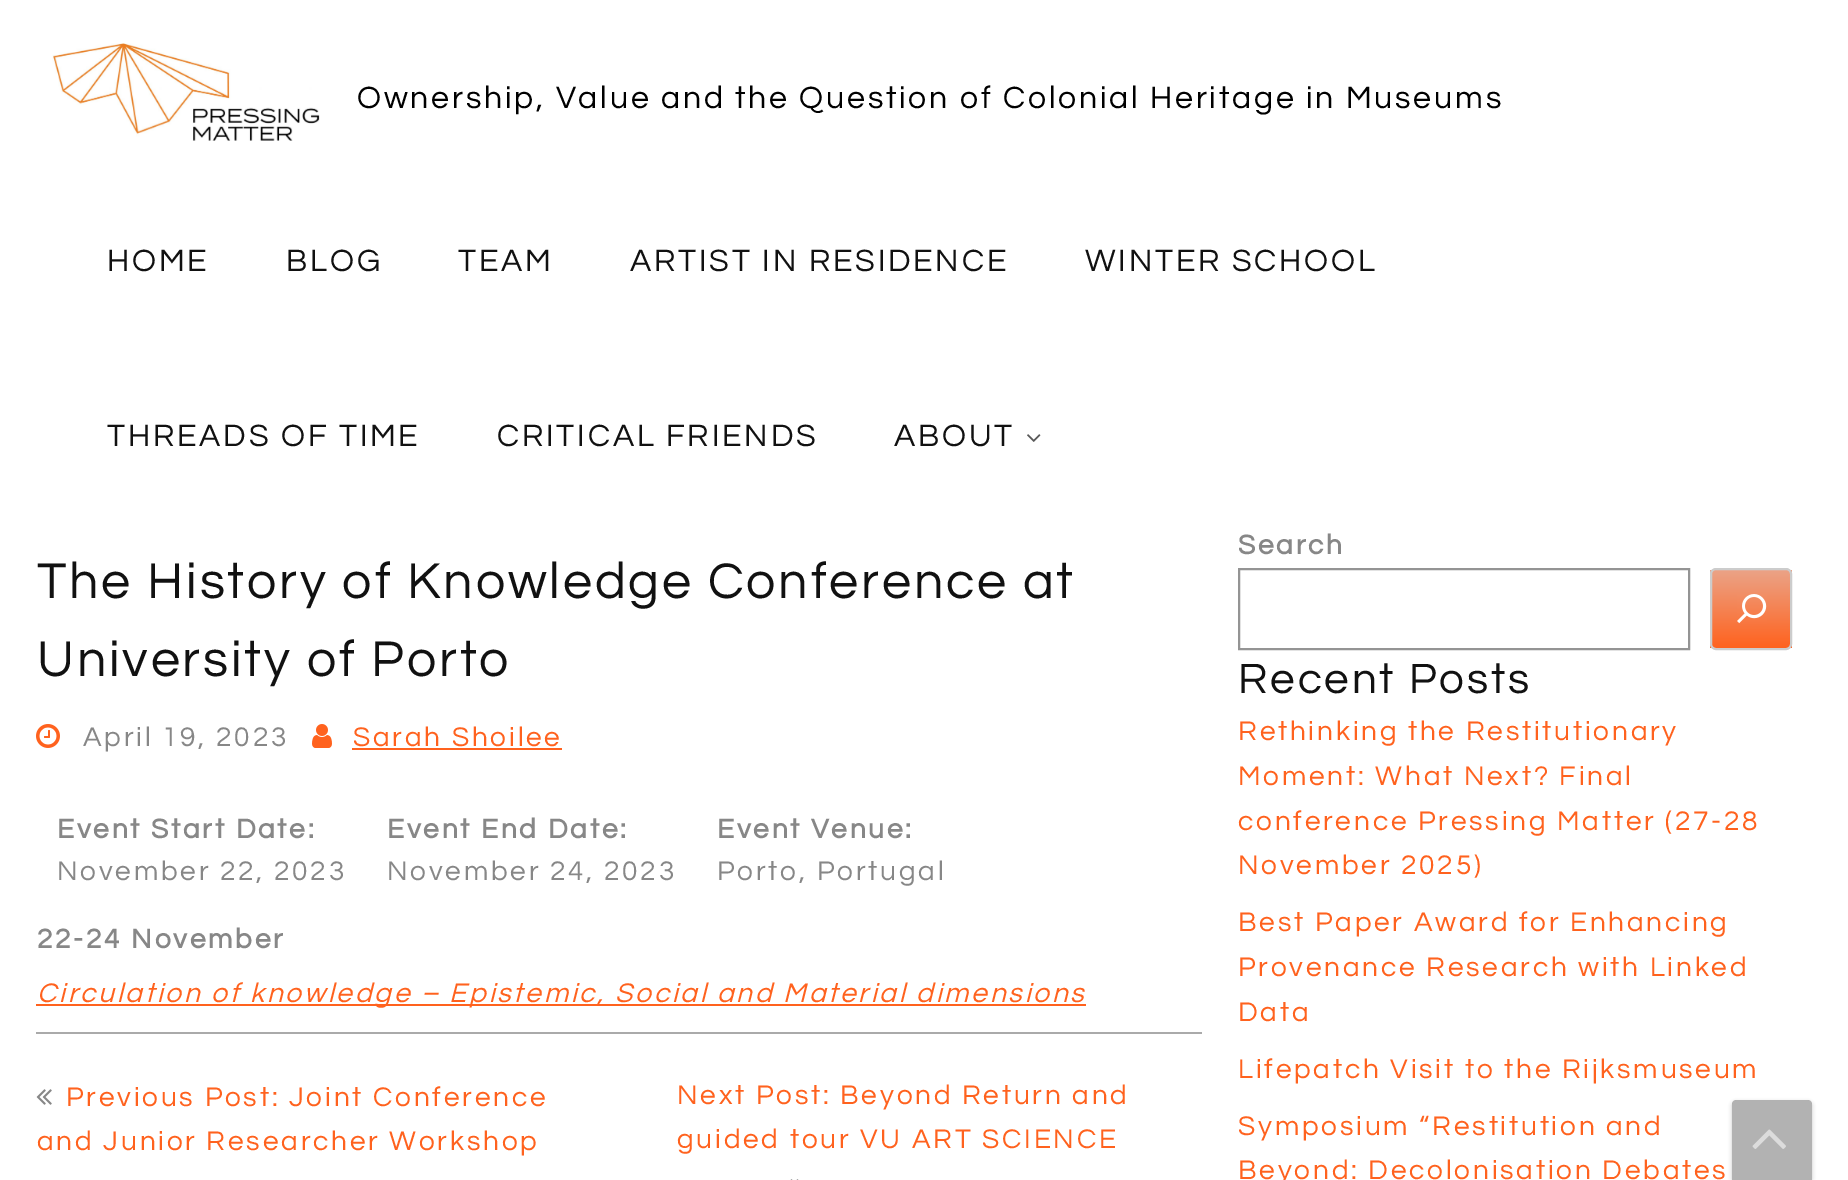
%!PS-Adobe-3.0
%%BoundingBox: 0 0 1848 1180
%%LanguageLevel: 3
%%Pages: 1
%%EndComments
%%BeginProlog
/m { moveto } bind def
/l { lineto } bind def
/c { curveto } bind def
/h { closepath } bind def
/f { fill } bind def
/S { stroke } bind def
/q { gsave } bind def
/Q { grestore } bind def
/w { setlinewidth } bind def
/fn { [ exch dup neg 0 0 3 -1 roll 0 0 ] selectfont } def
/bx { rectfill } def
/al { dup .setfillconstantalpha .setstrokeconstantalpha } def
/rr { 5 dict begin { /r /h /w /y /x } { exch def } forall
  x r add y moveto x w add y 2 copy h add r arct x w add y h add x 1 index r arct
  x y h add x y r arct x y 2 copy exch w add exch r arct closepath end } def
/sh { 12 dict begin { /a /b /q /h /w /y /x } { exch def } forall gsave /was 0 def
  9 -2 -9 { dup b mul 4 div /e exch def 1 sub .425 mul 2.718 exch exp 1 add a .99 .min exch div /now exch def
    1 1 now sub 1 was sub div sub al /was now def
    w h .min e 2 mul add 0 gt { x e sub y e sub w e 2 mul add h e 2 mul add
      q e add b .6 mul add w h .min 2 div e add .min 0 .max rr fill } if } for grestore end } def
/im { 5 dict begin { /h /w /y /x /name } { exch def } forall
  gsave x y translate w h scale
  w h 8 [w 0 0 h 0 0] name (r) file false 3 colorimage grestore end } def
%%EndProlog
%%BeginSetup
<< /PageSize [1848 1180] /PageUsesTransparency true >> setpagedevice
%%EndSetup
%%Page: 1 1
0 .pushpdf14devicefilter
0 1180 translate 1 -1 scale
4 setmiterlimit
1 setgray
0 0 1848 1180 bx
(image0.raw) 52 43 268 98 im
/Questrial-Regular 32 fn
0 setgray
357 108 m 2.8 0 (Ownership, Value and the Question of Colonial Heritage in Museums) ashow
0.067 setgray
107 271 m 2.8 0 (HOME) ashow
286 271 m 2.8 0 (BLOG) ashow
458 271 m 2.8 0 (TEAM) ashow
630 271 m 2.8 0 (ARTIST IN RESIDENCE) ashow
1085 271 m 2.8 0 (WINTER SCHOOL) ashow
107 446 m 2.8 0 (THREADS OF TIME) ashow
497 446 m 2.8 0 (CRITICAL FRIENDS) ashow
894 446 m 2.8 0 (ABOUT) ashow
(image1.raw) 1027 434 14 8 im
/Questrial-Regular 52 fn
37 598 m 2.8 0 (The History of Knowledge Conference at) ashow
37 676 m 2.8 0 (University of Porto) ashow
(image2.raw) 36 724 24 24 im
/Questrial-Regular 28 fn
0.529 setgray
83 746 m 2.8 0 (April 19, 2023) ashow
(image3.raw) 312 724 20 24 im
1 0.384 0.118 setrgbcolor
353 746 m 2.8 0 (Sarah Shoilee) ashow
352 748 210 2 bx
/Questrial-Bold 28 fn
0.529 setgray
57 838 m 2.8 0 (Event Start Date:) ashow
/Questrial-Regular 28 fn
57 880 m 2.8 0 (November 22, 2023) ashow
/Questrial-Bold 28 fn
387 838 m 2.8 0 (Event End Date:) ashow
/Questrial-Regular 28 fn
387 880 m 2.8 0 (November 24, 2023) ashow
/Questrial-Bold 28 fn
717 838 m 2.8 0 (Event Venue:) ashow
/Questrial-Regular 28 fn
717 880 m 2.8 0 (Porto, Portugal) ashow
/Questrial-Bold 28 fn
37 948 m 2.8 0 (22-24 November) ashow
1 0.384 0.118 setrgbcolor
36 1004 1050 2 bx
/Questrial-Italic 28 fn
37 1002 m 2.8 0 (Circulation of knowledge – Epistemic, Social and Material dimensions) ashow
0.667 setgray
36 1032 1166 2 bx
(image4.raw) 36 1089 16 16 im
/Questrial-Regular 28 fn
1 0.384 0.118 setrgbcolor
66 1106 m 2.8 0 (Previous Post: Joint Conference) ashow
37 1150 m 2.8 0 (and Junior Researcher Workshop) ashow
677 1104 m 2.8 0 (Next Post: Beyond Return and) ashow
677 1148 m 2.8 0 (guided tour VU ART SCIENCE) ashow
(image5.raw) 790 1179 9 1 im
/Questrial-Bold 28 fn
0.529 setgray
1238 554 m 2.8 0 (Search) ashow
0.58 setgray
2 w
1239 569 450 80 rectstroke
q
1710 568 82 82 6 rr clip newpath
q 1710 570 m 1792 570 l 1792 648 l 1710 648 l h clip newpath
<< /ShadingType 2 /ColorSpace /DeviceRGB /Coords [1751 570 1751 648] /Extend [true true] /Function << /FunctionType 2 /Domain [0 1] /C0 [0.922 0.639 0.529] /C1 [1 0.384 0.118] /N 1 >> >> shfill Q
Q
0.8 setgray
1711 569 80 80 5 rr S
(image6.raw) 1737 594 30 30 im
/Questrial-Regular 44 fn
0.067 setgray
1238 693 m 2.8 0 (Recent Posts) ashow
/Questrial-Regular 28 fn
1 0.384 0.118 setrgbcolor
1238 740 m 2.8 0 (Rethinking the Restitutionary) ashow
1238 785 m 2.8 0 (Moment: What Next? Final) ashow
1238 830 m 2.8 0 (conference Pressing Matter \(27-28) ashow
1238 874 m 2.8 0 (November 2025\)) ashow
1238 931 m 2.8 0 (Best Paper Award for Enhancing) ashow
1238 976 m 2.8 0 (Provenance Research with Linked) ashow
1238 1021 m 2.8 0 (Data) ashow
1238 1078 m 2.8 0 (Lifepatch Visit to the Rijksmuseum) ashow
1238 1135 m 2.8 0 (Symposium “Restitution and) ashow
1238 1179 m 2.8 0 (Beyond: Decolonisation Debates) ashow
q
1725 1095 m 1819 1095 l 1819 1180 l 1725 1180 l h 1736 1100 m 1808 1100 l 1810 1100 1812 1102 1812 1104 c 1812 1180 l 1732 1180 l 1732 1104 l 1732 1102 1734 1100 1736 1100 c h eoclip newpath
0.102 setgray
1732 1102 80 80 4 2 0.25 sh
Q
0.9 al
0.667 setgray
1736 1100 m 1808 1100 l 1810 1100 1812 1102 1812 1104 c 1812 1180 l 1732 1180 l 1732 1104 l 1732 1102 1734 1100 1736 1100 c h f
1 al
(image7.raw) 1752 1129 34 20 im
.poppdf14devicefilter showpage
%%EOF
